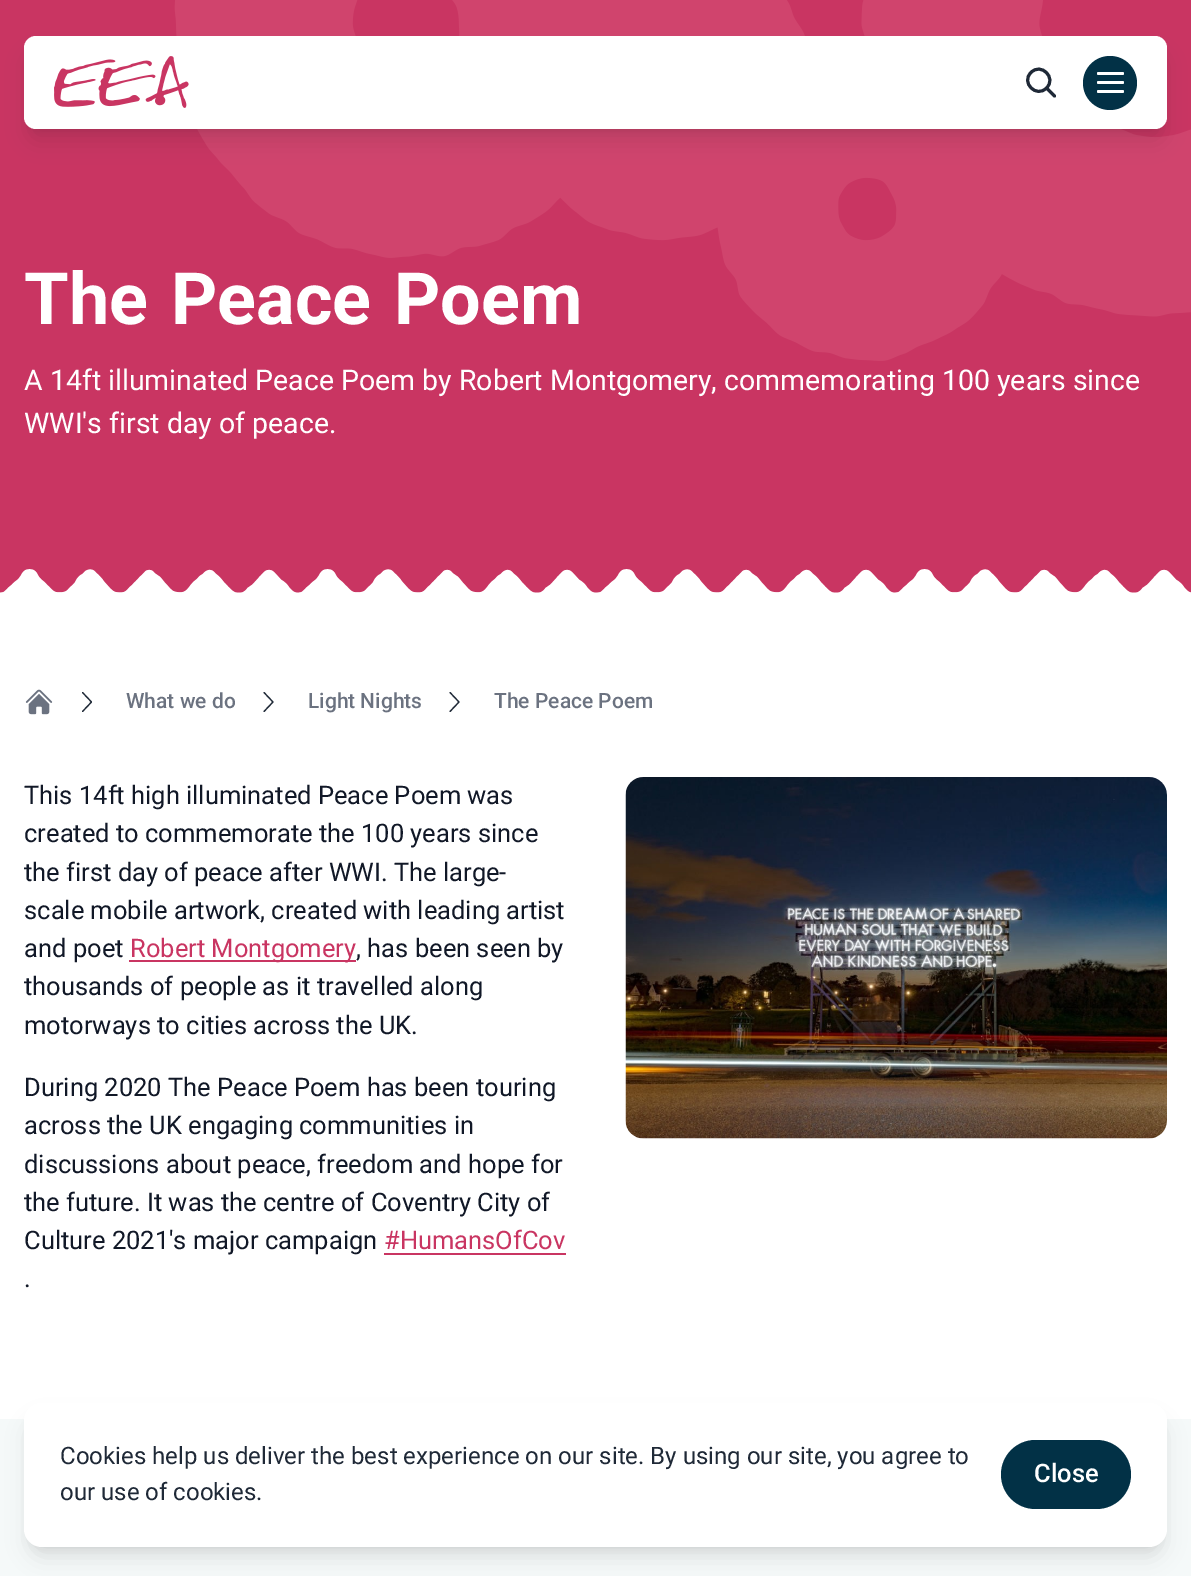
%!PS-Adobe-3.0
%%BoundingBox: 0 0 1191 1576
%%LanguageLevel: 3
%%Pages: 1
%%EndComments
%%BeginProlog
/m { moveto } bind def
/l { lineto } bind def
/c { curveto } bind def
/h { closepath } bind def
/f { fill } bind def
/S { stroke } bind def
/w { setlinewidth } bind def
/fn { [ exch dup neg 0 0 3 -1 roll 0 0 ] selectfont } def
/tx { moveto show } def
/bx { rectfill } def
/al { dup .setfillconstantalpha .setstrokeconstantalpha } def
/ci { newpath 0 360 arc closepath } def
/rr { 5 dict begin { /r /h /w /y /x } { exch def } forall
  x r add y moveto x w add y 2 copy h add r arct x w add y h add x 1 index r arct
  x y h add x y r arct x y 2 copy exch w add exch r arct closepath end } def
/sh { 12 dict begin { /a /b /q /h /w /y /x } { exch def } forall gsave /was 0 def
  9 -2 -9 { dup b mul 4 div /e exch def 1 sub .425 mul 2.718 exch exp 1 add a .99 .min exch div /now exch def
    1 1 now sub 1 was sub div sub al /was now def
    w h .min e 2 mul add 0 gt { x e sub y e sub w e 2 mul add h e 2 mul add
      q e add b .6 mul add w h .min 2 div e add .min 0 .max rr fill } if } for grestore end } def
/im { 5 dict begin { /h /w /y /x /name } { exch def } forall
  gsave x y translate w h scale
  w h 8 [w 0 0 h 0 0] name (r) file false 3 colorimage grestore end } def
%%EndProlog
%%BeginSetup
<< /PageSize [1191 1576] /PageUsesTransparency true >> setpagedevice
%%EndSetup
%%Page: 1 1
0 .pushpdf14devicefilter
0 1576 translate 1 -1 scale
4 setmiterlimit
1 setgray
0 0 1191 1576 bx
0.788 0.208 0.384 setrgbcolor
0 0 1191 566 bx
(image1.raw) 174 0 1017 361 im
0 setgray
30 48 1131 81 6 4.5 0.1 sh
29 56 1134 84 8 11 0.1 sh
1 setgray
24 36 1143 93 12 rr f
(image0.raw) 54 56 135 52 im
0.122 0.161 0.216 setrgbcolor
3 w
1 setlinecap
1 setlinejoin
1054.5 96 m 1046.5 88 l 1046.5 88 m 1057 78 1041 62 1031 72.5 c 1020.5 82.5 1036.5 98.5 1046.5 88 c h S
0.008 0.192 0.275 setrgbcolor
1110 83 27 ci f
1 setgray
1097 72 27 3 1.5 rr f
1097 81 27 3 1.5 rr f
1097 90 27 3 1.5 rr f
/Roboto-Bold 72 fn
24 324 m 5 0 32 (The Peace Poem) widthshow
/Roboto-Regular 28.5 fn
(A 14ft illuminated Peace Poem by Robert Montgomery, commemorating 100 years since) 24 390 tx
(WWI's first day of peace.) 24 433 tx
(image2.raw) 0 566 1191 27 im
(image3.raw) 25 689 28 26 im
0.122 0.161 0.216 setrgbcolor
1.2 w
82.5 692.5 m 91.5 702 l 82.5 711.5 l S
/Roboto-Medium 21 fn
0.42 0.447 0.502 setrgbcolor
(What we do) 126 708 tx
0.122 0.161 0.216 setrgbcolor
264 692.5 m 273 702 l 264 711.5 l S
0.42 0.447 0.502 setrgbcolor
(Light Nights) 308 708 tx
0.122 0.161 0.216 setrgbcolor
450 692.5 m 459 702 l 450 711.5 l S
0.42 0.447 0.502 setrgbcolor
(The Peace Poem) 494 708 tx
/Roboto-Regular 25.5 fn
0.067 0.094 0.153 setrgbcolor
(This 14ft high illuminated Peace Poem was) 24 804 tx
(created to commemorate the 100 years since) 24 842 tx
(the first day of peace after WWI. The large-) 24 881 tx
(scale mobile artwork, created with leading artist) 24 919 tx
(and poet) 24 957 tx
0.788 0.208 0.384 setrgbcolor
129 960 227 2 bx
(Robert Montgomery) 130 957 tx
0.067 0.094 0.153 setrgbcolor
(, has been seen by) 356 957 tx
(thousands of people as it travelled along) 24 995 tx
(motorways to cities across the UK.) 24 1034 tx
(During 2020 The Peace Poem has been touring) 24 1096 tx
(across the UK engaging communities in) 24 1134 tx
(discussions about peace, freedom and hope for) 24 1173 tx
(the future. It was the centre of Coventry City of) 24 1211 tx
(Culture 2021's major campaign) 24 1249 tx
0.788 0.208 0.384 setrgbcolor
(#HumansOfCov) 384 1249 tx
384 1253 182 2 bx
0.067 0.094 0.153 setrgbcolor
(.) 24 1287 tx
(image4.raw) 625 777 542 362 im
0.961 0.976 0.976 setrgbcolor
0 1419 1191 157 bx
0 setgray
30 1415 1131 132 12 4.5 0.1 sh
29 1422 1134 135 14 11 0.1 sh
1 setgray
24 1403 1143 144 18 rr f
/Roboto-Regular 24 fn
0.122 0.161 0.216 setrgbcolor
(Cookies help us deliver the best experience on our site. By using our site, you agree to) 60 1464 tx
(our use of cookies.) 60 1500 tx
0.008 0.192 0.275 setrgbcolor
1001 1440 130 69 34.5 rr f
/Roboto-Medium 25.5 fn
1 setgray
(Close) 1034 1482 tx
.poppdf14devicefilter showpage
%%EOF
